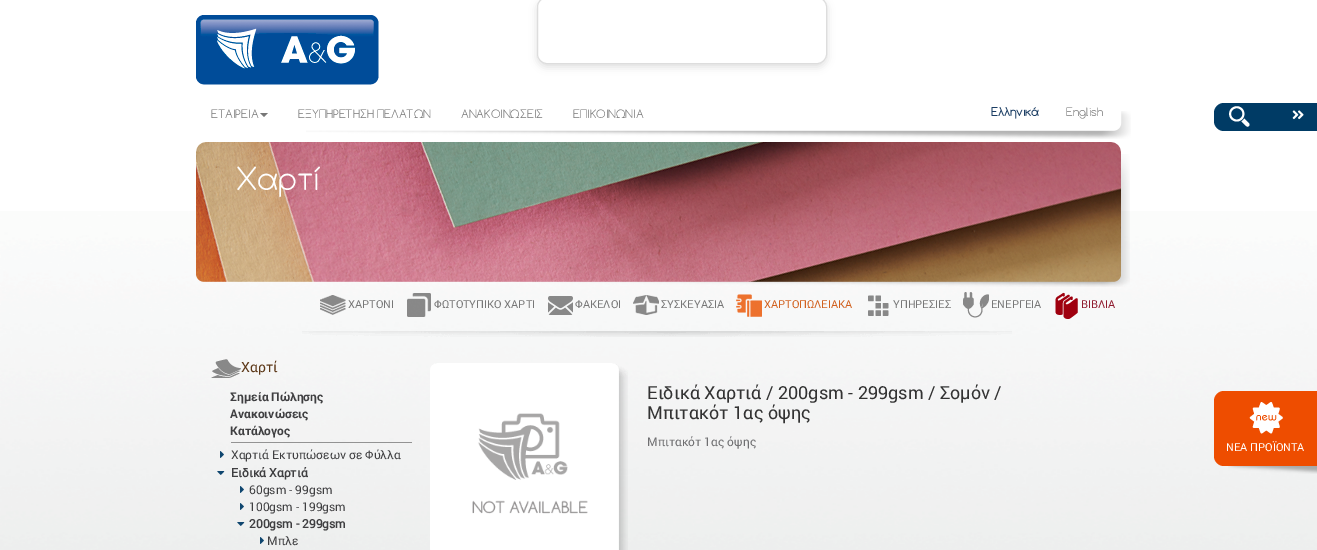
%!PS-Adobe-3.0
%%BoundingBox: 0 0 1317 550
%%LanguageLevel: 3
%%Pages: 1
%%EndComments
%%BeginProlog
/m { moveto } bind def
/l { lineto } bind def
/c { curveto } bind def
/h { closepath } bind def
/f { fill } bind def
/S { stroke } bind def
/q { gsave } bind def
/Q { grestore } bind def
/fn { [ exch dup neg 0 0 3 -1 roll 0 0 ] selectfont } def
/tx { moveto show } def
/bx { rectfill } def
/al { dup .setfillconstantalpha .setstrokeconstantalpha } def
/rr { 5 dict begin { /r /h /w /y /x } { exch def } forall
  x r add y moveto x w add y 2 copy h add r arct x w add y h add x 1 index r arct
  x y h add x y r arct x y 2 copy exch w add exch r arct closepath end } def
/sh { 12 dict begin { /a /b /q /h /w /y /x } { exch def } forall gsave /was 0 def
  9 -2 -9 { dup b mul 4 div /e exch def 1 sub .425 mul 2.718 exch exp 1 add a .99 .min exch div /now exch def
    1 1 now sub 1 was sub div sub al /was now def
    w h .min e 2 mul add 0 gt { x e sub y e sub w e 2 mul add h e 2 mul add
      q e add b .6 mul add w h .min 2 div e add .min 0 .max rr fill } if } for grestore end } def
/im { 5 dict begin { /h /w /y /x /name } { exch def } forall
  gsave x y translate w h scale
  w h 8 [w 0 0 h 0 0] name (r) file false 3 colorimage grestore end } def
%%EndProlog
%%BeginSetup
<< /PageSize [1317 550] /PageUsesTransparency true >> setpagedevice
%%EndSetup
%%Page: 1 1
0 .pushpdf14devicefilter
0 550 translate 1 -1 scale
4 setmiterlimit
1 setgray
0 0 1317 550 bx
(image0.raw) 196 15 183 70 im
0 setgray
537 0 290 67 10 4 0.12 sh
1 setgray
537.5 -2.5 289 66 9.5 rr q f Q
0.867 setgray
S
(image1.raw) 306 111 825 28 im
/Comfortaa-Light 11 fn
0.467 setgray
(ΕΤΑΙΡΕΙΑ) 211 118 tx
260 113 m 268 113 l 264 117 l h f
(ΕΞΥΠΗΡΕΤΗΣΗ ΠΕΛΑΤΩΝ) 298 118 tx
(ΑΝΑΚΟΙΝΩΣΕΙΣ) 461 118 tx
(ΕΠΙΚΟΙΝΩΝΙΑ) 573 118 tx
/Comfortaa-Bold 11 fn
0.106 0.239 0.388 setrgbcolor
(Ελληνικά) 991 116 tx
/Comfortaa-Light 11 fn
0.467 setgray
(English) 1066 116 tx
0 0.231 0.396 setrgbcolor
1224 103 m 1317 103 l 1317 131 l 1224 131 l 1218.5 131 1214 126.5 1214 121 c 1214 113 l 1214 107.5 1218.5 103 1224 103 c h f
(image2.raw) 1229 106 21 21 im
(image3.raw) 1292 110 12 10 im
(image26.raw) 0 211 1317 339 im
(image4.raw) 1228 466 89 8 im
0.933 0.302 0 setrgbcolor
1224 391 m 1317 391 l 1317 466 l 1224 466 l 1218.5 466 1214 461.5 1214 456 c 1214 401 l 1214 395.5 1218.5 391 1224 391 c h f
(image5.raw) 1249 402 34 32 im
/roboto-Regular 11 fn
1 setgray
(ΝΕΑ ΠΡΟΪΟΝΤΑ) 1226 451 tx
(image6.raw) 532 154 598 133 im
(image7.raw) 196 142 925 140 im
/Comfortaa-Light 30 fn
(Χαρτί) 236 190 tx
(image8.raw) 320 295 26 20 im
/roboto-Regular 11 fn
0.467 setgray
(ΧΑΡΤΟΝΙ) 348 308 tx
(image9.raw) 407 293 24 24 im
(ΦΩΤΟΤΥΠΙΚΟ ΧΑΡΤΙ) 434 308 tx
(image10.raw) 548 296 25 19 im
(ΦΑΚΕΛΟΙ) 575 308 tx
(image11.raw) 633 295 26 20 im
(ΣΥΣΚΕΥΑΣΙΑ) 661 308 tx
(image12.raw) 736 294 26 23 im
0.82 0.38 0.122 setrgbcolor
(ΧΑΡΤΟΠΩΛΕΙΑΚΑ) 764 308 tx
(image13.raw) 868 295 21 21 im
0.467 setgray
(ΥΠΗΡΕΣΙΕΣ) 893 308 tx
(image14.raw) 963 292 26 26 im
(ΕΝΕΡΓΕΙΑ) 991 308 tx
(image15.raw) 1055 292 23 27 im
0.565 0.11 0.184 setrgbcolor
(ΒΙΒΛΙΑ) 1081 308 tx
(image16.raw) 302 331 710 6 im
(image17.raw) 211 359 30 19 im
/roboto-Regular 14 fn
0.365 0.224 0.098 setrgbcolor
(Χαρτί) 241 372 tx
/Roboto-Bold 12 fn
0.247 0.247 0.255 setrgbcolor
(Σημεία Πώλησης) 230 401 tx
(Ανακοινώσεις) 230 418 tx
(Κατάλογος) 230 435 tx
0.576 setgray
231 442 181 1 bx
(image18.raw) 220 451 4 7 im
/roboto-Regular 12 fn
0.247 0.247 0.255 setrgbcolor
(Χαρτιά Εκτυπώσεων σε Φύλλα) 231 459 tx
(image19.raw) 217 471 8 4 im
/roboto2-Bold 12 fn
(Ειδικά Χαρτιά) 231 477 tx
(image20.raw) 240 486 4 7 im
/roboto-Regular 12 fn
(60gsm - 99gsm) 249 494 tx
(image21.raw) 240 503 4 7 im
(100gsm - 199gsm) 249 511 tx
(image22.raw) 237 522 8 4 im
/roboto2-Bold 12 fn
(200gsm - 299gsm) 249 528 tx
(image23.raw) 260 537 4 7 im
/roboto-Regular 12 fn
(Μπλε) 267 545 tx
(image24.raw) 430 363 198 187 im
(image25.raw) 472 413 116 101 im
/roboto-Regular 18 fn
0.2 setgray
(Ειδικά Χαρτιά / 200gsm - 299gsm / Σομόν /) 647 399 tx
(Μπιτακότ 1ας όψης) 647 419 tx
/roboto-Regular 12 fn
0.435 0.435 0.443 setrgbcolor
(Μπιτακότ 1ας όψης) 647 446 tx
.poppdf14devicefilter showpage
%%EOF
